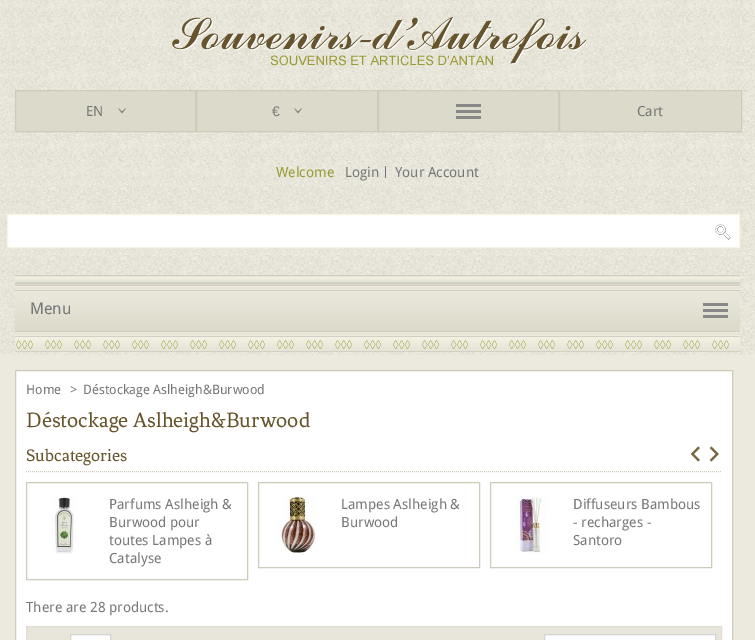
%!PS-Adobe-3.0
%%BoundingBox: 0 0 755 640
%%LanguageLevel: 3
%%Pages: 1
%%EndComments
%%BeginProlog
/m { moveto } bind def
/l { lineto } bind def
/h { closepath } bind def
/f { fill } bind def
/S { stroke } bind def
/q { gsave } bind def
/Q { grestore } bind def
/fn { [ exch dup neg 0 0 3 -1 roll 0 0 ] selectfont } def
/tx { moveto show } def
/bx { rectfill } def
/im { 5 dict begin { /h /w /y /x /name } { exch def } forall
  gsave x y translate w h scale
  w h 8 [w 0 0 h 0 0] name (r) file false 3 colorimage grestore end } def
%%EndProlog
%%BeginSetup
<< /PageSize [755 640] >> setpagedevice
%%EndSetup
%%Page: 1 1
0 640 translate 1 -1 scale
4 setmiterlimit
0.925 0.918 0.871 setrgbcolor
0 0 755 640 bx
(image0.raw) 0 0 755 355 im
(image1.raw) 15 0 725 355 im
(image2.raw) 172 17 414 49 im
0.863 0.855 0.796 setrgbcolor
378.5 90.5 m 558.5 90.5 l 558.5 131.5 l 378.5 131.5 l h q f Q
0.808 0.796 0.729 setrgbcolor
S
(image3.raw) 456 104 25 15 im
0.863 0.855 0.796 setrgbcolor
15.5 90.5 m 195.5 90.5 l 195.5 131.5 l 15.5 131.5 l h q f Q
0.808 0.796 0.729 setrgbcolor
S
/DroidSans-Regular 14 fn
0.467 setgray
(EN) 86 116 tx
(image4.raw) 118 108 8 6 im
0.863 0.855 0.796 setrgbcolor
196.5 90.5 m 377.5 90.5 l 377.5 131.5 l 196.5 131.5 l h q f Q
0.808 0.796 0.729 setrgbcolor
S
/LiberationSans-Regular 14 fn
0.467 setgray
(€) 272 116 tx
(image4.raw) 294 108 8 6 im
0.863 0.855 0.796 setrgbcolor
559.5 90.5 m 741.5 90.5 l 741.5 131.5 l 559.5 131.5 l h q f Q
0.808 0.796 0.729 setrgbcolor
S
/DroidSans-Regular 14 fn
0.467 setgray
(Cart) 637 116 tx
0.604 0.604 0.212 setrgbcolor
(Welcome) 276 177 tx
0.467 setgray
(Login) 345 177 tx
385 166 1 12 bx
(Your Account) 395 177 tx
1 setgray
7.5 214.5 m 739.5 214.5 l 739.5 247.5 l 7.5 247.5 l h q f Q
0.973 0.961 0.898 setrgbcolor
S
(image5.raw) 715 224 16 16 im
(image6.raw) 15 275 725 77 im
/DroidSans-Regular 16 fn
0.467 setgray
(Menu) 30 314 tx
(image7.raw) 703 303 25 15 im
1 setgray
15.5 370.5 m 732.5 370.5 l 732.5 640.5 l 15.5 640.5 l h q f Q
0.808 0.796 0.729 setrgbcolor
S
/DroidSans-Regular 13 fn
0.467 setgray
(Home) 26 394 tx
(>) 70 394 tx
(Déstockage Aslheigh&Burwood) 83 394 tx
/Fenix-Regular 22 fn
0.4 0.333 0.173 setrgbcolor
(Déstockage Aslheigh&Burwood) 26 427 tx
0.808 0.796 0.729 setrgbcolor
[1 1] 0 setdash
26 471.5 m 722 471.5 l S
/Fenix-Regular 18 fn
0.4 0.333 0.173 setrgbcolor
(Subcategories) 26 461 tx
(image8.raw) 690 446 10 16 im
(image9.raw) 709 446 10 16 im
0.808 0.796 0.729 setrgbcolor
[] 0 setdash
26.5 482.5 221 97 rectstroke
(image10.raw) 52 496 24 58 im
/DroidSans-Regular 14 fn
0.467 setgray
(Parfums Aslheigh &) 109 509 tx
(Burwood pour) 109 527 tx
(toutes Lampes à) 109 545 tx
(Catalyse) 109 563 tx
0.808 0.796 0.729 setrgbcolor
258.5 482.5 221 85 rectstroke
(image11.raw) 277 496 39 58 im
0.467 setgray
(Lampes Aslheigh &) 341 509 tx
(Burwood) 341 527 tx
0.808 0.796 0.729 setrgbcolor
490.5 482.5 221 85 rectstroke
(image12.raw) 516 496 31 58 im
0.467 setgray
(Diffuseurs Bambous) 573 509 tx
(- recharges -) 573 527 tx
(Santoro) 573 545 tx
(There are 28 products.) 26 612 tx
0.91 0.902 0.855 setrgbcolor
26.5 626.5 m 721.5 626.5 l 721.5 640.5 l 26.5 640.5 l h q f Q
0.878 0.871 0.82 setrgbcolor
S
1 setgray
70.5 634.5 m 110.5 634.5 l 110.5 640.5 l 70.5 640.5 l h q f Q
0.831 setgray
S
1 setgray
544.5 634.5 m 715.5 634.5 l 715.5 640.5 l 544.5 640.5 l h q f Q
0.831 setgray
S
showpage
%%EOF
